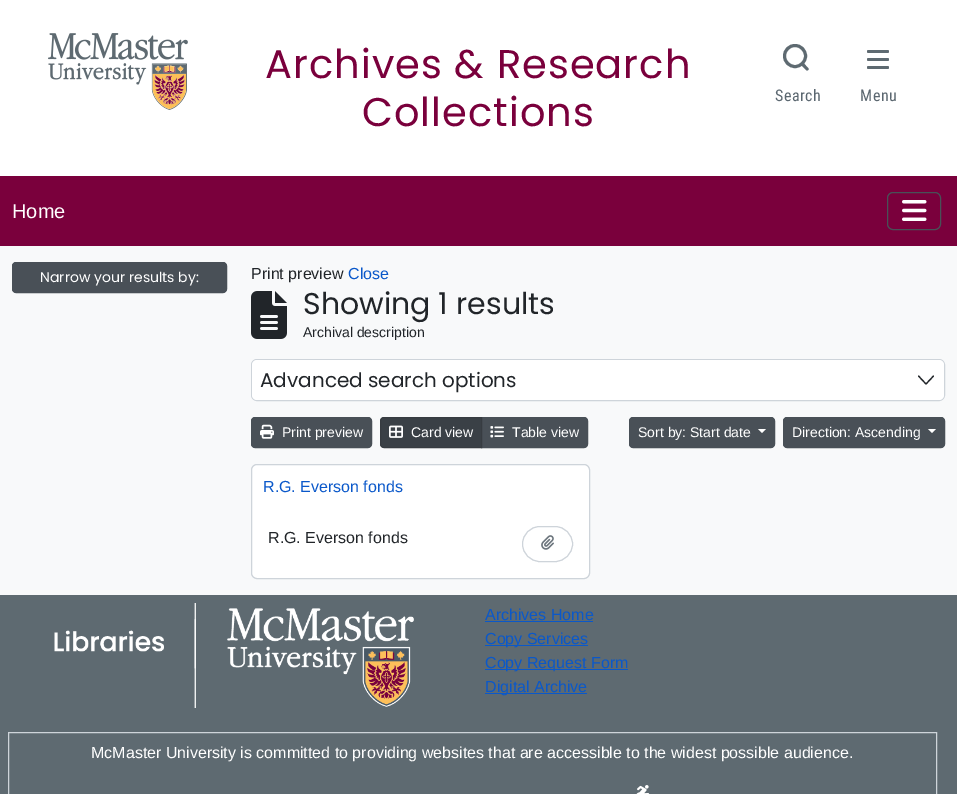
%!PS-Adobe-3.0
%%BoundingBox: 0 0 957 794
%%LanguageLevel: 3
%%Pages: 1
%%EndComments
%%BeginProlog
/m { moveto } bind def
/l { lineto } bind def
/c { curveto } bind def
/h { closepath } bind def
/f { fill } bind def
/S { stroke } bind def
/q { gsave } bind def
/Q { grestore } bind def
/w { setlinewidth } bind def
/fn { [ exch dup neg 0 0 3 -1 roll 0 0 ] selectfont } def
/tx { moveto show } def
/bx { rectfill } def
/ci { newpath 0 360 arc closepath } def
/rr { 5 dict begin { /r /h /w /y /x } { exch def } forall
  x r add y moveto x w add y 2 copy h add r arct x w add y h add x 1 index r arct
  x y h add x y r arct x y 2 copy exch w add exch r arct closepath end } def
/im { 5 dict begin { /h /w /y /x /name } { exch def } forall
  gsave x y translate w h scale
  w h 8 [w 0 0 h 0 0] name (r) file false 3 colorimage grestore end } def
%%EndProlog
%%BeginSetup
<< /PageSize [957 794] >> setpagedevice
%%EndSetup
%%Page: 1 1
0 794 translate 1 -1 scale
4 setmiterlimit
0.973 0.976 0.98 setrgbcolor
0 0 957 794 bx
1 setgray
0 0 957 176 bx
(image0.raw) 48 33 140 77 im
/Poppins-Regular 40 fn
0.478 0 0.235 setrgbcolor
265 78 m 1 0 (Archives & Research) ashow
362 126 m 1 0 (Collections) ashow
0.369 0.416 0.443 setrgbcolor
3 w
795 56 10.5 ci S
803.5 63 m 808.5 68.5 l 809 70 807.5 71 806 70 c 801 65 l 800 63.5 802 61.5 803.5 63 c h f
/RobotoCondensed-Regular 16 fn
0.357 0.404 0.439 setrgbcolor
775 101 m 0.5 0 (Search) ashow
0.369 0.416 0.443 setrgbcolor
867 58 22 3 1.5 rr f
867 50 22 3 1.5 rr f
867 66 22 3 1.5 rr f
0.357 0.404 0.439 setrgbcolor
860 101 m 0.5 0 (Menu) ashow
0.478 0 0.235 setrgbcolor
0 176 957 70 bx
/LiberationSans-Regular 20 fn
1 setgray
(Home) 12 218 tx
0.286 0.314 0.341 setrgbcolor
1 w
887.5 192.5 53 37 5.5 rr S
(image1.raw) 902 200 25 21 im
12.5 262.5 214 30 3.5 rr q f Q
S
/Poppins-Regular 14 fn
1 setgray
(Narrow your results by:) 40 282 tx
/LiberationSans-Regular 16 fn
0.129 0.145 0.161 setrgbcolor
(Print preview) 251 279 tx
0.039 0.345 0.792 setrgbcolor
(Close) 348 279 tx
(image2.raw) 251 291 36 48 im
/Poppins-Regular 30 fn
0.129 0.145 0.161 setrgbcolor
(Showing 1 results) 303 314 tx
/LiberationSans-Regular 14 fn
(Archival description) 303 337 tx
0.808 0.831 0.855 setrgbcolor
251.5 359.5 693 41 5.5 rr S
1 setgray
252 360 692 40 5 rr f
/Poppins-Regular 20 fn
0.129 0.145 0.161 setrgbcolor
(Advanced search options) 260 387 tx
1.2 w
1 setlinecap
1 setlinejoin
918.5 376 m 926 384 l 933.5 376 l S
0.286 0.314 0.341 setrgbcolor
251.5 417.5 120 30 3.5 rr q f Q
1 w
0 setlinecap
0 setlinejoin
S
(image3.raw) 260 424 14 15 im
/LiberationSans-Regular 14 fn
1 setgray
(Print preview) 282 437 tx
0.286 0.314 0.341 setrgbcolor
481.5 417.5 m 584 417.5 l 586 417.5 587.5 419 587.5 421 c 587.5 444 l 587.5 446 586 447.5 584 447.5 c 481.5 447.5 l h q f Q
S
0.227 0.251 0.275 setrgbcolor
384 417.5 m 481.5 417.5 l 481.5 447.5 l 384 447.5 l 382 447.5 380.5 446 380.5 444 c 380.5 421 l 380.5 419 382 417.5 384 417.5 c h q f Q
0.216 0.235 0.255 setrgbcolor
S
(image4.raw) 389 425 14 13 im
1 setgray
(Card view) 411 437 tx
(image5.raw) 490 426 14 12 im
(Table view) 512 437 tx
0.286 0.314 0.341 setrgbcolor
629.5 417.5 145 30 3.5 rr q f Q
S
1 setgray
(Sort by: Start date) 638 437 tx
758 429 m 766 429 l 762 433 l h f
0.286 0.314 0.341 setrgbcolor
783.5 417.5 161 30 3.5 rr q f Q
S
1 setgray
(Direction: Ascending) 792 437 tx
928 429 m 936 429 l 932 433 l h f
251.5 464.5 338 114 5.5 rr q f Q
0.808 0.831 0.855 setrgbcolor
S
/LiberationSans-Regular 16 fn
0.039 0.345 0.792 setrgbcolor
(R.G. Everson fonds) 263 492 tx
0.129 0.145 0.161 setrgbcolor
(R.G. Everson fonds) 268 543 tx
0.808 0.831 0.855 setrgbcolor
522.5 526.5 50 35 17.5 rr S
(image6.raw) 541 535 13 15 im
0.369 0.416 0.443 setrgbcolor
0 595 957 199 bx
(image7.raw) 54 603 360 105 im
0.039 0.345 0.792 setrgbcolor
(Archives Home) 485 620 tx
485 621 108 1 bx
485 645 103 1 bx
(Copy Services) 485 644 tx
485 669 143 1 bx
(Copy Request Form) 485 668 tx
485 693 102 1 bx
(Digital Archive) 485 692 tx
0.808 0.831 0.855 setrgbcolor
8.5 732.5 928 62 rectstroke
1 setgray
(McMaster University is committed to providing websites that are accessible to the widest possible audience.) 91 758 tx
(image8.raw) 636 785 14 9 im
showpage
%%EOF
